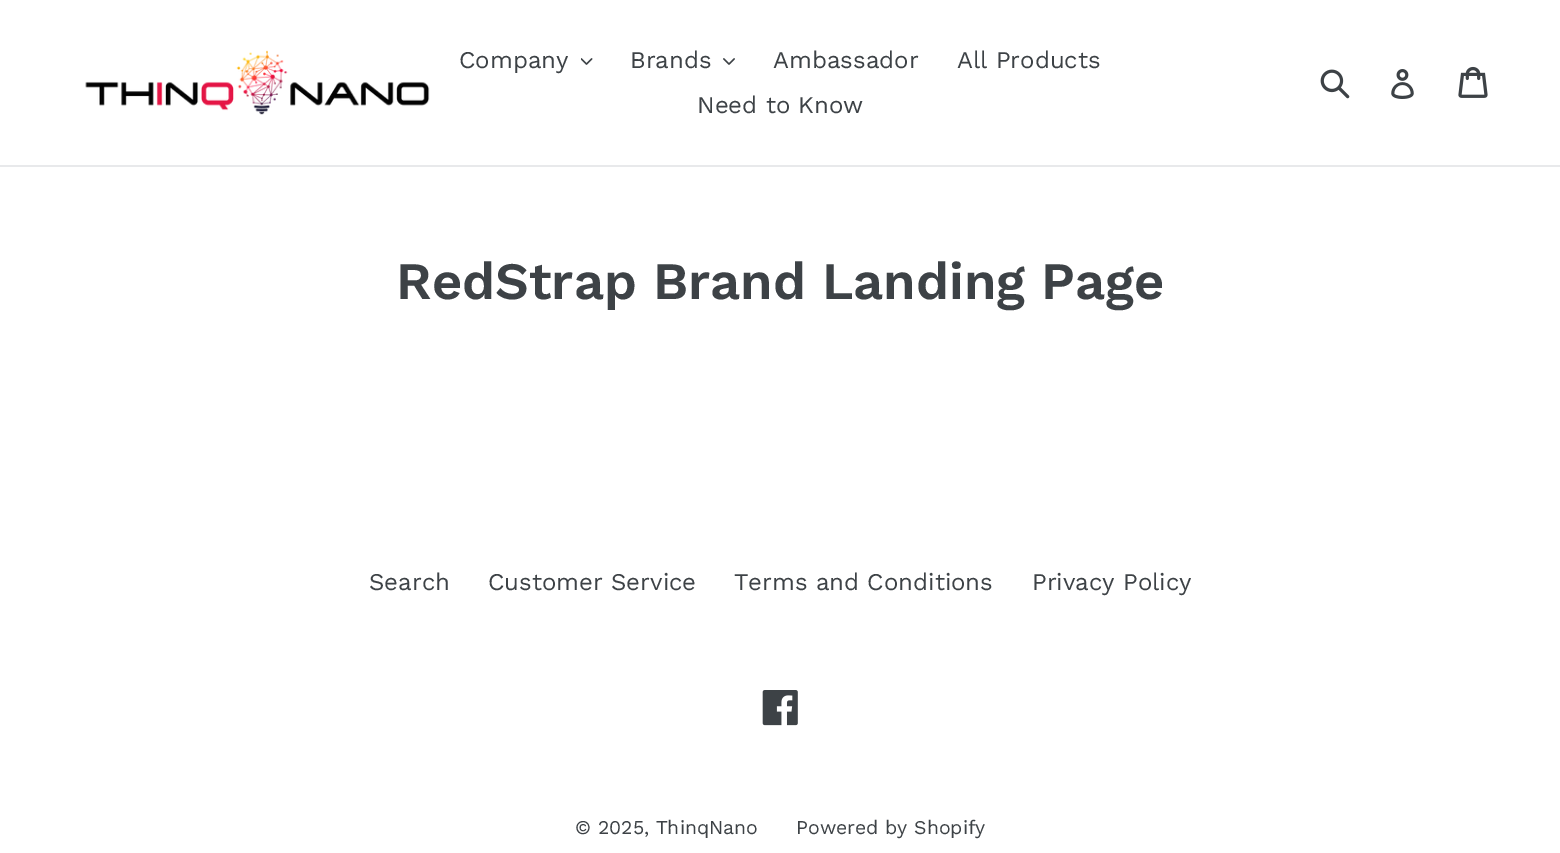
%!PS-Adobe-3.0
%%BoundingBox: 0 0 1560 853
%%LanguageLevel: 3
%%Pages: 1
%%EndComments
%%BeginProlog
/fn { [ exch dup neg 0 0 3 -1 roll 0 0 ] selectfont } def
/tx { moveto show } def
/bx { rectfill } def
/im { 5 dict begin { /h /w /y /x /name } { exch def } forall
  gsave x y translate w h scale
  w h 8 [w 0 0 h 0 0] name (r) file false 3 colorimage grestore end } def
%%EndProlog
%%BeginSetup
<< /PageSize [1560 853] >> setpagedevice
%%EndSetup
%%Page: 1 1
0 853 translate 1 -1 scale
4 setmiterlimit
1 setgray
0 0 1560 853 bx
0.91 0.914 0.922 setrgbcolor
0 165 1560 2 bx
(image0.raw) 85 50 345 65 im
/WorkSans-Regular 24 fn
0.239 0.259 0.275 setrgbcolor
(Company) 459 68 tx
(image1.raw) 581 58 12 7 im
(Brands) 630 68 tx
(image2.raw) 723 58 12 7 im
(Ambassador) 773 68 tx
(All Products) 957 68 tx
(Need to Know) 697 113 tx
(image3.raw) 1320 69 30 30 im
(image4.raw) 1391 69 23 30 im
(image5.raw) 1458 66 30 32 im
/WorkSans-SemiBold 52.5 fn
(RedStrap Brand Landing Page) 396 299 tx
/WorkSans-Regular 24 fn
(Search) 369 590 tx
(Customer Service) 488 590 tx
(Terms and Conditions) 734 590 tx
(Privacy Policy) 1032 590 tx
(image6.raw) 762 690 36 36 im
/WorkSans-Regular 19.5 fn
(© 2025, ThinqNano) 575 834 tx
(Powered by Shopify) 796 834 tx
showpage
%%EOF
